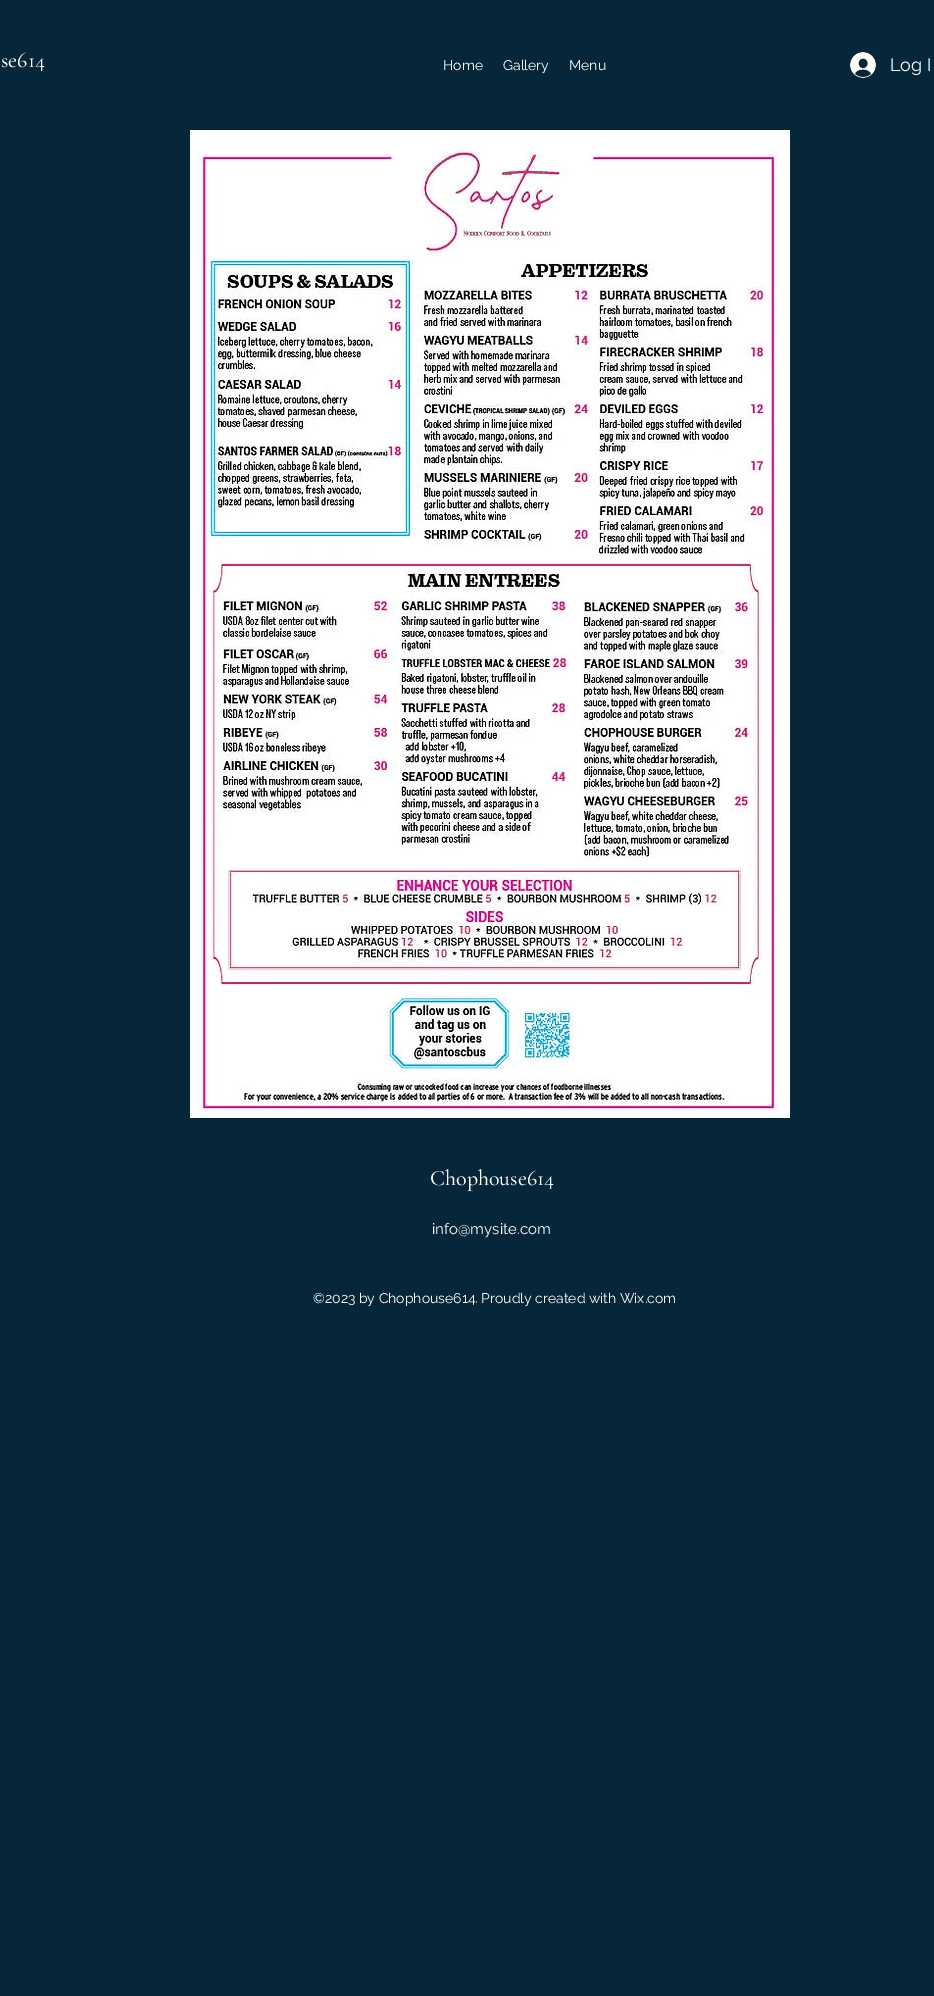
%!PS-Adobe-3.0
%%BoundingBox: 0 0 934 1996
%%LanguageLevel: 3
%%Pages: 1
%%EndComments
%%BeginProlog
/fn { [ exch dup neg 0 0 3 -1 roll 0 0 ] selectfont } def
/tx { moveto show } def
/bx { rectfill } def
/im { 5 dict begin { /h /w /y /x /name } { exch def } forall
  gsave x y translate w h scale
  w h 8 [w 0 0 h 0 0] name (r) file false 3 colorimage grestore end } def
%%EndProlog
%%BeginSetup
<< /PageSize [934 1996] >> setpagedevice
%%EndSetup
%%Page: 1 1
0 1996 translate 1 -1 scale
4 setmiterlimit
0.024 0.153 0.227 setrgbcolor
0 0 934 1996 bx
/CormorantGaramond-Medium 22 fn
1 0.996 0.973 setrgbcolor
(se614) 1 67 tx
/Raleway-Regular 14 fn
(Home) 443 70 tx
(Gallery) 503 70 tx
1 0.976 0.925 setrgbcolor
(Menu) 569 70 tx
(image0.raw) 850 52 26 26 im
/Raleway-Regular 18 fn
1 0.996 0.973 setrgbcolor
(Log I) 890 71 tx
(image1.raw) 190 130 600 988 im
/CormorantGaramond-Medium 22 fn
(Chophouse614) 430 1185 tx
/Raleway-Regular 15 fn
(info@mysite.com) 432 1234 tx
/Raleway-Regular 14 fn
(©2023 by Chophouse614. Proudly created with Wix.com) 313 1303 tx
showpage
%%EOF
